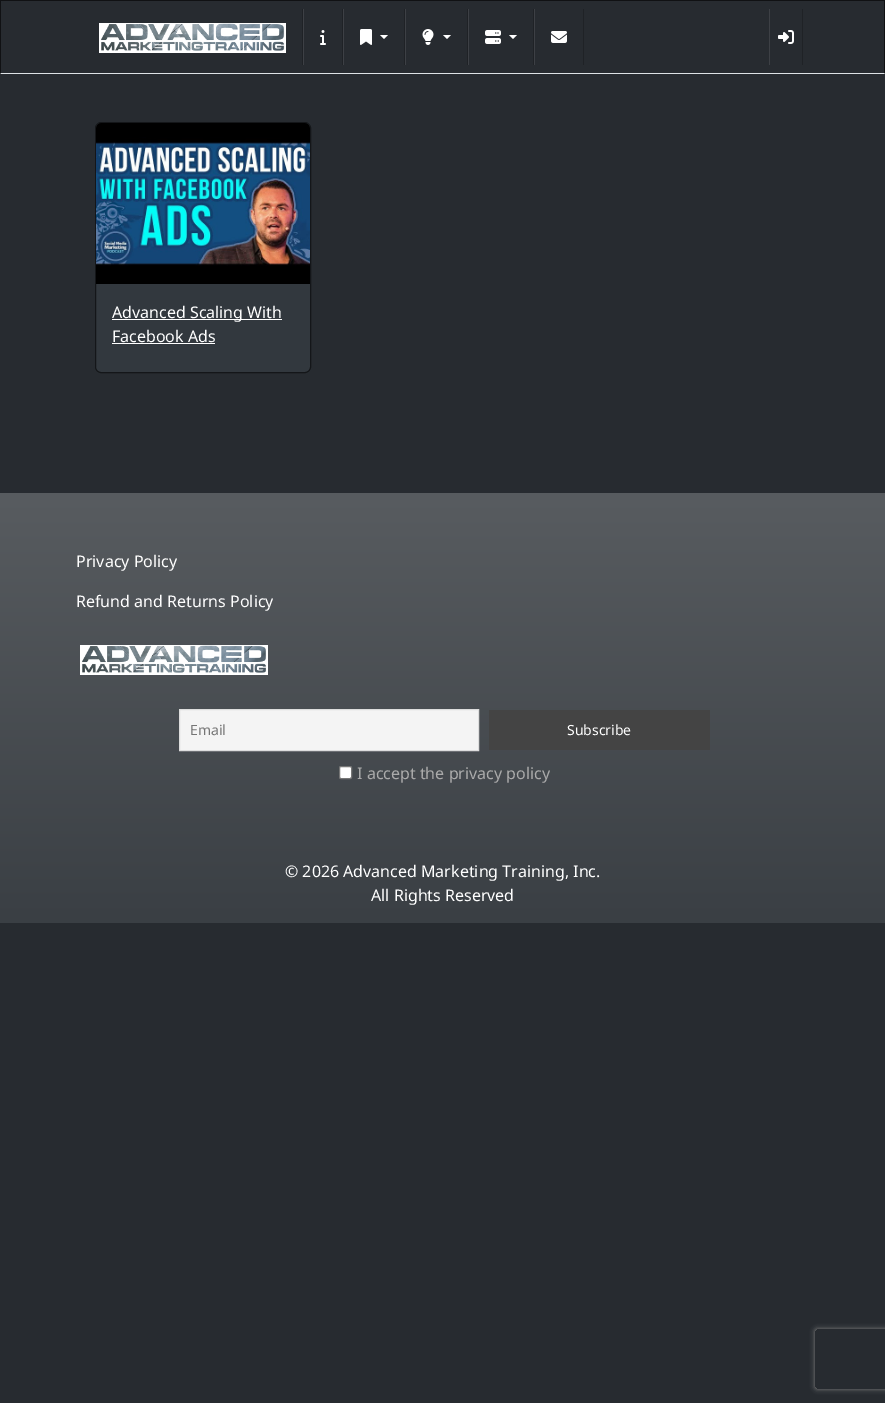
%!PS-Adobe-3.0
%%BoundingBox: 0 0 885 1403
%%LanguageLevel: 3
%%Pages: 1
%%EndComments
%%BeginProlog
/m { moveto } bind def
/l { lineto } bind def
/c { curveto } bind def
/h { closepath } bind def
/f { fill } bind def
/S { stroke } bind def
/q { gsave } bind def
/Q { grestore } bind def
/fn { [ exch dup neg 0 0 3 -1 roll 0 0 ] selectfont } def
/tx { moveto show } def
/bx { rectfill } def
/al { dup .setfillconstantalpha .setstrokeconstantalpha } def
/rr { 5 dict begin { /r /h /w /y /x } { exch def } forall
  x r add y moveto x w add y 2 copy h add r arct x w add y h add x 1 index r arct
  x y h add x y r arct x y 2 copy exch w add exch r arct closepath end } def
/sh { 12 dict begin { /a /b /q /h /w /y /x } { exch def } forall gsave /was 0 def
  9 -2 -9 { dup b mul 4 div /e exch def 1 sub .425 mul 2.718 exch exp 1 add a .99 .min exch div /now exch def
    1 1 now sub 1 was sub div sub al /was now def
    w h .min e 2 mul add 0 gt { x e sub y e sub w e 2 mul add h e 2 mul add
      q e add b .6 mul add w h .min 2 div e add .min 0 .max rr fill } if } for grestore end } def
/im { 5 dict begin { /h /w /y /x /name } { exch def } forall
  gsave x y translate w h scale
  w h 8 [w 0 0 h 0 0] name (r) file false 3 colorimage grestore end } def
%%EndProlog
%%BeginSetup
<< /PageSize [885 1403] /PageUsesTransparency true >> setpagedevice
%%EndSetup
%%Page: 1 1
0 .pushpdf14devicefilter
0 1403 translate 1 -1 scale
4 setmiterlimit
0.153 0.169 0.188 setrgbcolor
0 0 885 1403 bx
0.063 0.067 0.075 setrgbcolor
0 0 m 885 0 l 884 1 l 1 1 l h f
0.6 al
0 setgray
885 0 m 885 74 l 884 73 l 884 1 l h f
1 al
0.871 0.886 0.902 setrgbcolor
885 74 m 0 74 l 1 73 l 884 73 l h f
0.6 al
0 setgray
0 74 m 0 0 l 1 1 l 1 73 l h f
1 al
0.122 0.133 0.149 setrgbcolor
302 9 1 56 bx
(image0.raw) 99 23 187 30 im
342 9 1 56 bx
0.239 0.251 0.271 setrgbcolor
303 9 1 56 bx
(image1.raw) 320 30 6 15 im
0.122 0.133 0.149 setrgbcolor
404 9 1 56 bx
0.239 0.251 0.271 setrgbcolor
343 9 1 56 bx
(image2.raw) 360 29 12 16 im
1 setgray
380 35 m 388 35 l 384 39 l h f
0.122 0.133 0.149 setrgbcolor
467 9 1 56 bx
0.239 0.251 0.271 setrgbcolor
405 9 1 56 bx
(image3.raw) 422 29 12 16 im
1 setgray
443 35 m 451 35 l 447 39 l h f
0.122 0.133 0.149 setrgbcolor
533 9 1 56 bx
0.239 0.251 0.271 setrgbcolor
468 9 1 56 bx
(image4.raw) 485 30 16 14 im
1 setgray
509 35 m 517 35 l 513 39 l h f
0.122 0.133 0.149 setrgbcolor
583 9 1 56 bx
0.239 0.251 0.271 setrgbcolor
534 9 1 56 bx
(image5.raw) 551 31 16 12 im
0.122 0.133 0.149 setrgbcolor
802 9 1 56 bx
0.239 0.251 0.271 setrgbcolor
769 9 1 56 bx
(image6.raw) 778 30 16 14 im
0.196 0.22 0.243 setrgbcolor
95 122 216 251 6 rr f
0.6 al
0 setgray
95.5 122.5 215 250 5.5 rr S
1 al
(image7.raw) 96 123 214 161 im
1 setgray
112 319 170 1 bx
/NotoSans-Regular 16 fn
(Advanced Scaling With) 112 318 tx
(Facebook Ads) 112 342 tx
112 343 103 1 bx
q 0 493 m 885 493 l 885 923 l 0 923 l h clip newpath
<< /ShadingType 2 /ColorSpace /DeviceRGB /Coords [443 493 443 923] /Extend [true true] /Function << /FunctionType 2 /Domain [0 1] /C0 [0.345 0.361 0.376] /C1 [0.227 0.247 0.267] /N 1 >> >> shfill Q
(Privacy Policy) 76 567 tx
(Refund and Returns Policy) 76 607 tx
(image8.raw) 80 645 188 30 im
0.957 setgray
179.5 709.5 m 478.5 709.5 l 478.5 750.5 l 179.5 750.5 l h q f Q
0.867 setgray
S
/NotoSans-Regular 14 fn
0.459 setgray
(Email) 190 735 tx
0.267 setgray
489 710 221 40 bx
1 setgray
(Subscribe) 567 735 tx
339.5 766.5 12 12 1.5 rr q f Q
0.463 setgray
S
/NotoSans-Regular 16 fn
0.667 setgray
(I accept the privacy policy) 357 779 tx
1 setgray
(© 2026 Advanced Marketing Training, Inc.) 285 877 tx
(All Rights Reserved) 371 901 tx
q
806 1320 m 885 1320 l 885 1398 l 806 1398 l h 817 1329 m 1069 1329 l 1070 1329 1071 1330 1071 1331 c 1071 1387 l 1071 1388 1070 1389 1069 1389 c 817 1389 l 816 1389 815 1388 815 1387 c 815 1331 l 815 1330 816 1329 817 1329 c h eoclip newpath
0.502 setgray
815 1329 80 60 2 2.5 1 sh
Q
.poppdf14devicefilter showpage
%%EOF
